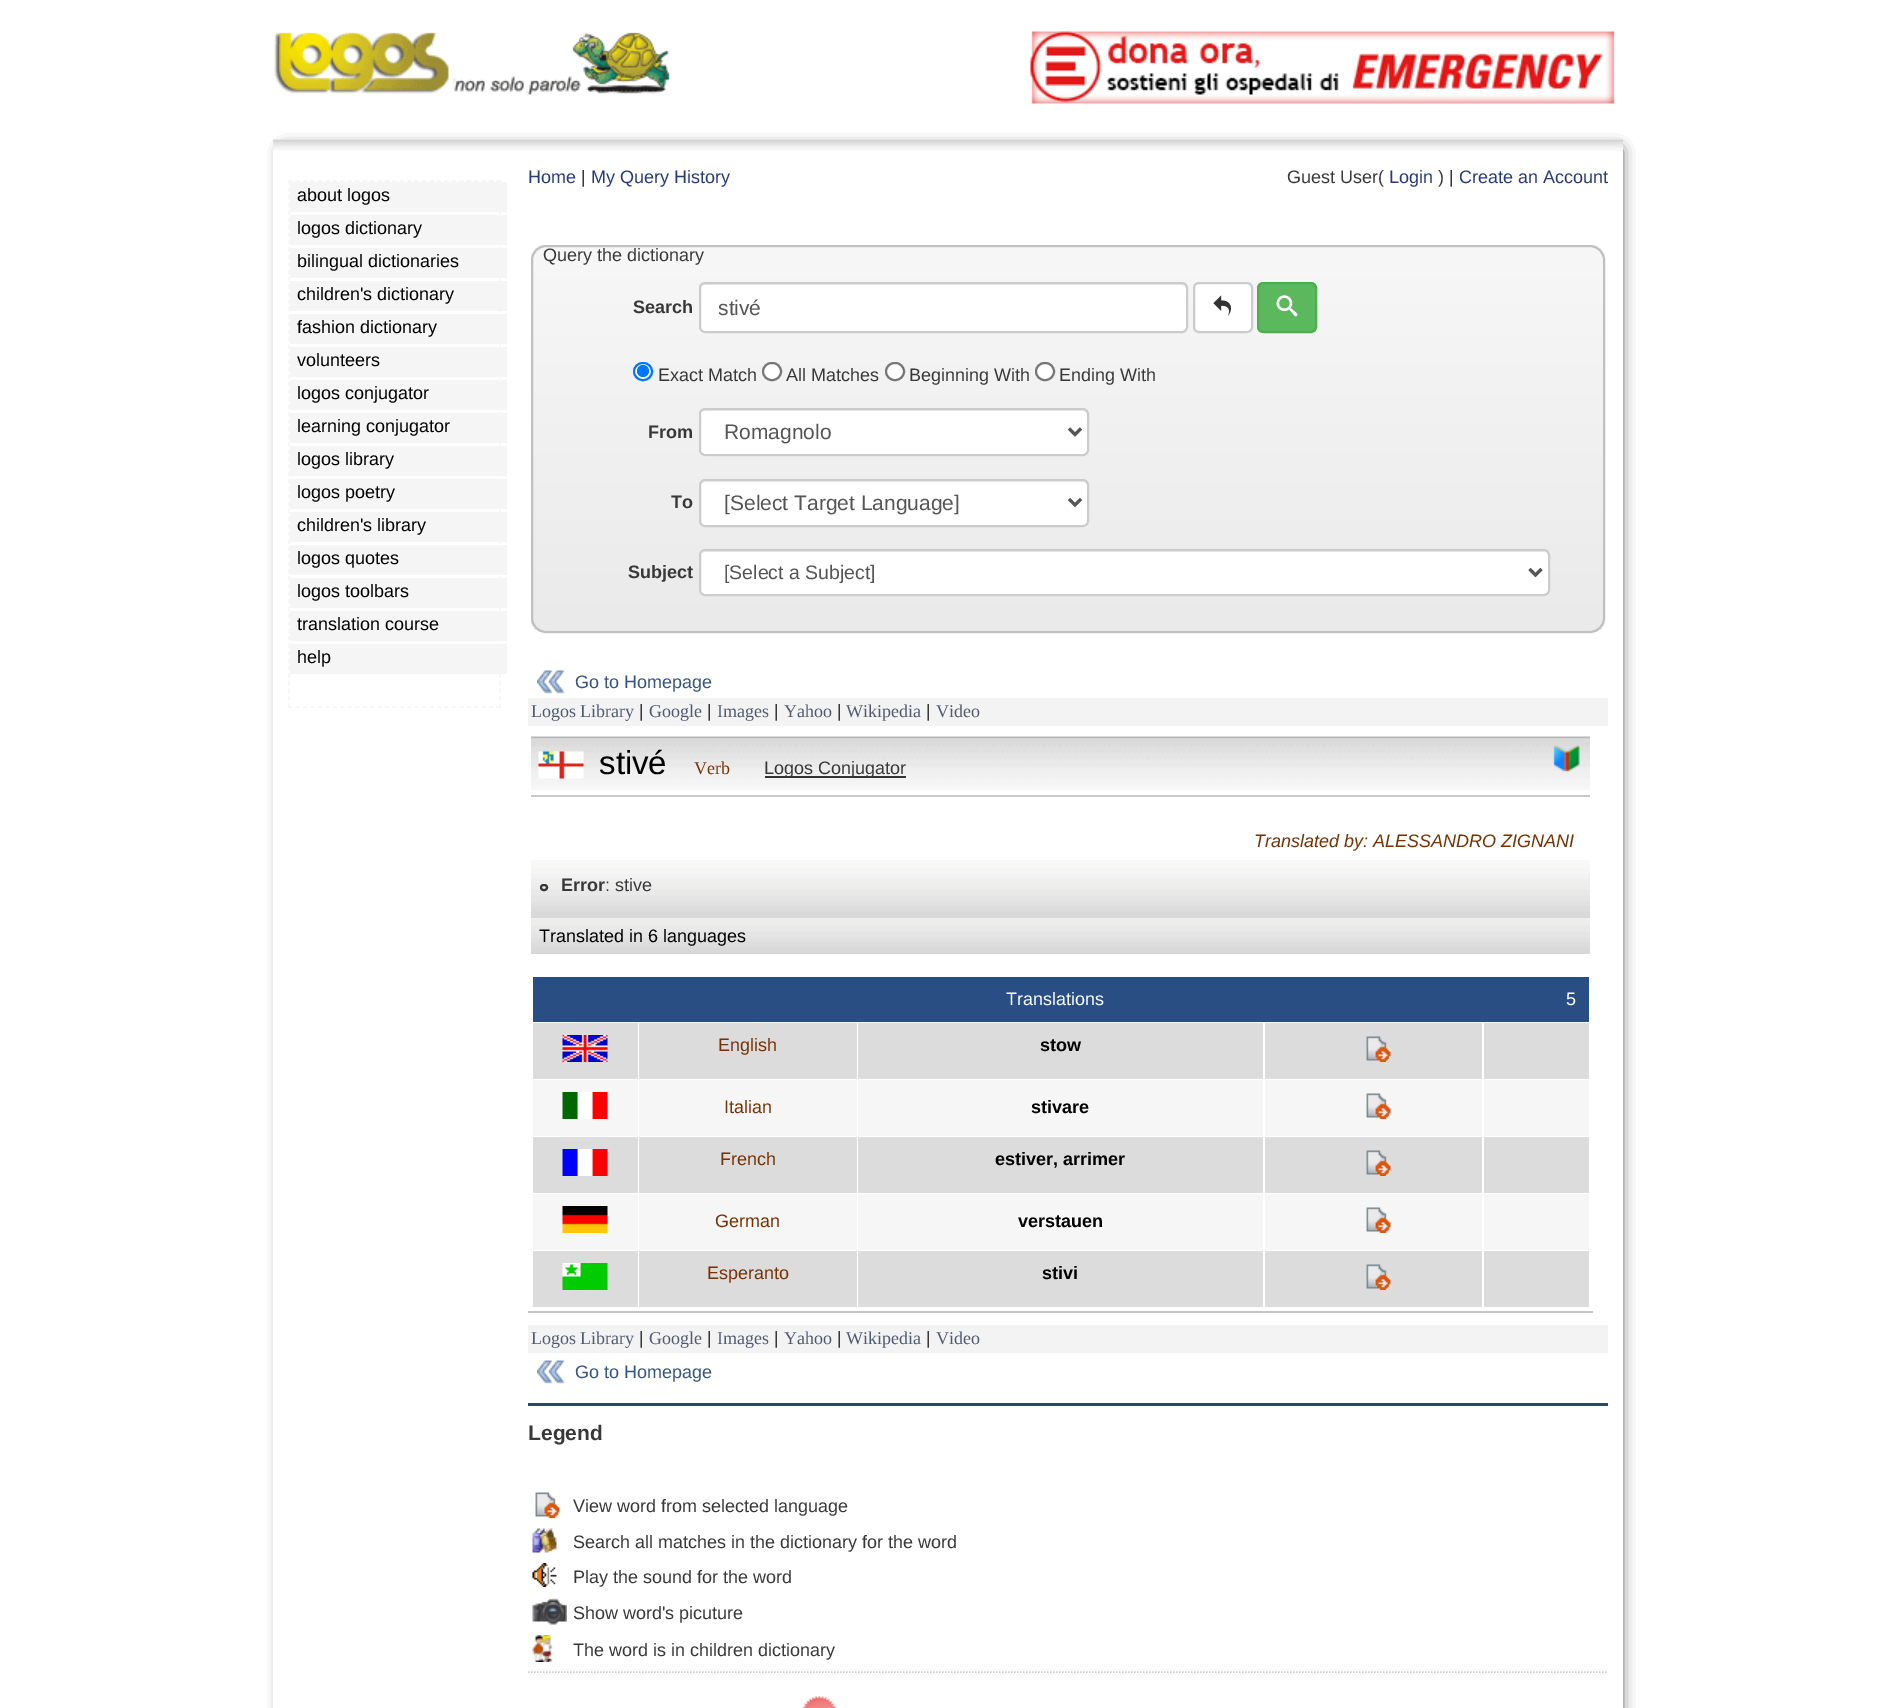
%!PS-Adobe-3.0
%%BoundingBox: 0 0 1896 1708
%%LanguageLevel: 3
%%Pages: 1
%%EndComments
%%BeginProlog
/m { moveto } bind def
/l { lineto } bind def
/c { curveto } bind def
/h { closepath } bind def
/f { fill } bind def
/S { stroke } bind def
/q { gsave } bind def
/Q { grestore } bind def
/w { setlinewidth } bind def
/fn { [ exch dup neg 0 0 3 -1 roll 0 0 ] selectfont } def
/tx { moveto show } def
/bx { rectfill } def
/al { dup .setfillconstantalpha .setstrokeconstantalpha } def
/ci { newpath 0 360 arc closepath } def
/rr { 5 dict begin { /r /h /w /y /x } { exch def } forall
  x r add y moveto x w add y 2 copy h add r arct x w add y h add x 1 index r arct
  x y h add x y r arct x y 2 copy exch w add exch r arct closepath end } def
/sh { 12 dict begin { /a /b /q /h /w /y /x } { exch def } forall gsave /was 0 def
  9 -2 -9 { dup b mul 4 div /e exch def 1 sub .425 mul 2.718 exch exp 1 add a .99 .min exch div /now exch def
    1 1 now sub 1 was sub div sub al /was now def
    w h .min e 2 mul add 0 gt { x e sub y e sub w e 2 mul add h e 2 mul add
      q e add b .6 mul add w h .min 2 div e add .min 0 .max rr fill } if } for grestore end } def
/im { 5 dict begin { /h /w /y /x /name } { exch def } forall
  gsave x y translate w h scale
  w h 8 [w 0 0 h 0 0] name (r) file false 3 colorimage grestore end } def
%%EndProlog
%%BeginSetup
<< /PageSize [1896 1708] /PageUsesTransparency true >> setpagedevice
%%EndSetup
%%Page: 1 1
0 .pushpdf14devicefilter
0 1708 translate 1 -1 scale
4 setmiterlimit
1 setgray
0 0 1896 1708 bx
(image0.raw) 274 32 396 63 im
(image1.raw) 1030 31 585 73 im
q
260 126 m 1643 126 l 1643 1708 l 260 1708 l h 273 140 m 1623 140 l 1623 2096 l 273 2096 l h eoclip newpath
0 setgray
284 150 1335 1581 0 7.5 1 sh
Q
(image2.raw) 273 139 1350 12 im
0.961 setgray
1.5 w
[4.5 2.94] 0 setdash
288 181 m 501 181 l S
[4.5 2.98] 0 setdash
500 180 m 500 708 l S
[4.5 2.94] 0 setdash
288 707 m 501 707 l S
[4.5 2.98] 0 setdash
289 180 m 289 708 l S
290 182 217 30 bx
/LiberationSans-Regular 18 fn
0 setgray
(about logos) 297 201 tx
0.961 setgray
290 215 217 30 bx
0 setgray
(logos dictionary) 297 234 tx
0.961 setgray
290 248 217 30 bx
0 setgray
(bilingual dictionaries) 297 267 tx
0.961 setgray
290 281 217 30 bx
0 setgray
(children's dictionary) 297 300 tx
0.961 setgray
290 314 217 30 bx
0 setgray
(fashion dictionary) 297 333 tx
0.961 setgray
290 347 217 30 bx
0 setgray
(volunteers) 297 366 tx
0.961 setgray
290 380 217 30 bx
0 setgray
(logos conjugator) 297 399 tx
0.961 setgray
290 413 217 30 bx
0 setgray
(learning conjugator) 297 432 tx
0.961 setgray
290 446 217 30 bx
0 setgray
(logos library) 297 465 tx
0.961 setgray
290 479 217 30 bx
0 setgray
(logos poetry) 297 498 tx
0.961 setgray
290 512 217 30 bx
0 setgray
(children's library) 297 531 tx
0.961 setgray
290 545 217 30 bx
0 setgray
(logos quotes) 297 564 tx
0.961 setgray
290 578 217 30 bx
0 setgray
(logos toolbars) 297 597 tx
0.961 setgray
290 611 217 30 bx
0 setgray
(translation course) 297 630 tx
0.961 setgray
290 644 217 30 bx
0 setgray
(help) 297 663 tx
0.149 0.231 0.478 setrgbcolor
(Home) 528 183 tx
0.22 setgray
(|) 581 183 tx
0.149 0.231 0.478 setrgbcolor
(My Query History) 591 183 tx
0.22 setgray
(Guest User\() 1287 183 tx
0.149 0.231 0.478 setrgbcolor
(Login) 1389 183 tx
0.22 setgray
(\) |) 1438 183 tx
0.149 0.231 0.478 setrgbcolor
(Create an Account) 1459 183 tx
q
531 245 1074 388 15 rr clip newpath
q 531 246 m 1605 246 l 1605 632 l 531 632 l h clip newpath
<< /ShadingType 2 /ColorSpace /DeviceRGB /Coords [1068 246 1068 632] /Extend [true true] /Function << /FunctionType 2 /Domain [0 1] /C0 [0.969 0.969 0.969] /C1 [0.918 0.918 0.918] /N 1 >> >> shfill Q
Q
0.753 setgray
2 w
[] 0 setdash
532 246 1072 386 14 rr S
0.22 setgray
(Query the dictionary) 543 261 tx
/LiberationSans-Bold 18 fn
(Search) 633 313 tx
1 setgray
699 282 489 51 6 rr f
0.925 setgray
705 285 m 1182 285 l 1184 285 1186 287 1186 290 c 1186 328 l 1185 331 l 1186 330 1187 328 1187 327 c 1187 289 l 1187 286 1185 284 1182 284 c 706 284 l 704 284 703 285 702 286 c h f
0.8 setgray
700 283 487 49 5 rr S
q
719 293 450 30 rectclip
/LiberationSans-Regular 21 fn
0.333 setgray
(stivé) 718 315 tx
Q
1 setgray
1194 283 58 49 5 rr q f Q
0.8 setgray
S
(image3.raw) 1213 295 18 21 im
0.361 0.722 0.361 setrgbcolor
1258 283 58 49 5 rr q f Q
0.298 0.682 0.298 setrgbcolor
S
(image4.raw) 1276 295 22 22 im
1 setgray
634 363 18 17 8.5 rr q f Q
0 0.459 1 setrgbcolor
S
643 371 6 ci f
/LiberationSans-Regular 18 fn
0.22 setgray
(Exact Match) 658 381 tx
1 setgray
763 363 18 17 8.5 rr q f Q
0.463 setgray
S
0.22 setgray
(All Matches) 786 381 tx
1 setgray
886 363 18 17 8.5 rr q f Q
0.463 setgray
S
0.22 setgray
(Beginning With) 909 381 tx
1 setgray
1036 363 18 17 8.5 rr q f Q
0.463 setgray
S
0.22 setgray
(Ending With) 1059 381 tx
/LiberationSans-Bold 18 fn
(From) 648 438 tx
1 setgray
699 408 390 48 6 rr f
0.925 setgray
705 411 m 1083 411 l 1085 411 1088 413 1088 416 c 1088 415 l 1088 412 1086 410 1083 410 c 706 410 l 704 410 703 411 702 412 c h f
0.8 setgray
700 409 388 46 5 rr S
0.333 setgray
3 w
1069 428.5 m 1075 434.5 l 1081 428.5 l S
/LiberationSans-Regular 21 fn
(Romagnolo) 724 439 tx
/LiberationSans-Bold 18 fn
0.22 setgray
(To) 671 508 tx
1 setgray
699 479 390 48 6 rr f
0.925 setgray
705 482 m 1083 482 l 1085 482 1088 484 1088 486 c 1088 485 l 1088 482 1086 480 1083 480 c 706 480 l 704 480 702 482 701 484 c 702 483 704 482 705 482 c h f
0.8 setgray
2 w
700 480 388 46 5 rr S
0.333 setgray
3 w
1069 499 m 1075 505 l 1081 499 l S
/LiberationSans-Regular 21 fn
([Select Target Language]) 724 510 tx
/LiberationSans-Bold 18 fn
0.22 setgray
(Subject) 628 578 tx
1 setgray
699 549 851 47 6 rr f
0.925 setgray
705 552 m 1544 552 l 1546 552 1548 554 1548 556 c 1548 553 1546 551 1543 551 c 706 551 l 704 551 703 552 702 553 c h f
0.8 setgray
2 w
700 550 849 45 5 rr S
0.333 setgray
3 w
1529.5 569 m 1535.5 575 l 1541.5 569 l S
/LiberationSans-Regular 19.5 fn
([Select a Subject]) 724 579 tx
(image5.raw) 537 670 28 24 im
/LiberationSans-Regular 18 fn
0.212 0.333 0.51 setrgbcolor
(Go to Homepage) 575 688 tx
0.953 setgray
528 698 1080 28 bx
/LiberationSerif-Regular 18 fn
0.31 0.349 0.435 setrgbcolor
(Logos Library) 531 717 tx
/LiberationSans-Regular 18 fn
0.22 setgray
(|) 639 717 tx
/LiberationSerif-Regular 18 fn
0.31 0.349 0.435 setrgbcolor
(Google) 649 717 tx
/LiberationSans-Regular 18 fn
0.22 setgray
(|) 707 717 tx
/LiberationSerif-Regular 18 fn
0.31 0.349 0.435 setrgbcolor
(Images) 717 717 tx
/LiberationSans-Regular 18 fn
0.22 setgray
(|) 774 717 tx
/LiberationSerif-Regular 18 fn
0.31 0.349 0.435 setrgbcolor
(Yahoo) 784 717 tx
/LiberationSans-Regular 18 fn
0.22 setgray
(|) 837 717 tx
/LiberationSerif-Regular 18 fn
0.31 0.349 0.435 setrgbcolor
(Wikipedia) 846 717 tx
/LiberationSans-Regular 18 fn
0.22 setgray
(|) 926 717 tx
/LiberationSerif-Regular 18 fn
0.31 0.349 0.435 setrgbcolor
(Video) 936 717 tx
0.773 setgray
528 1311 1065 2 bx
(image6.raw) 531 736 1059 54 im
(image7.raw) 538 751 46 28 im
/LiberationSans-Regular 33 fn
0 setgray
(stivé) 599 774 tx
/LiberationSerif-Regular 18 fn
0.467 0.196 0.012 setrgbcolor
(Verb) 694 774 tx
0.2 setgray
765 776 141 2 bx
/LiberationSans-Regular 18 fn
0.22 setgray
(Logos Conjugator) 764 774 tx
(image8.raw) 1553 744 27 28 im
0.784 setgray
531 795 1059 2 bx
(image9.raw) 531 860 1059 58 im
/LiberationSans-Italic 18 fn
0.467 0.196 0.012 setrgbcolor
(Translated by: ALESSANDRO ZIGNANI) 1254 847 tx
0.22 setgray
2 w
541 885 6 5 2.5 rr S
/LiberationSans-Bold 18 fn
(Error) 561 891 tx
/LiberationSans-Regular 18 fn
(: stive) 605 891 tx
(image10.raw) 531 918 1059 36 im
0 setgray
(Translated in 6 languages) 539 942 tx
0.157 0.306 0.518 setrgbcolor
533 977 1056 45 bx
1 setgray
(Translations) 1006 1005 tx
(5) 1566 1005 tx
0.863 setgray
533 1023 105 56 bx
(image11.raw) 562 1035 46 27 im
639 1023 218 56 bx
0.467 0.196 0.012 setrgbcolor
(English) 718 1051 tx
0.863 setgray
858 1023 405 56 bx
/LiberationSans-Bold 18 fn
0 setgray
(stow) 1040 1051 tx
0.863 setgray
1265 1023 217 56 bx
(image12.raw) 1366 1036 25 26 im
1484 1023 105 56 bx
0.965 setgray
533 1080 105 56 bx
(image13.raw) 562 1092 46 27 im
639 1080 218 56 bx
/LiberationSans-Regular 18 fn
0.467 0.196 0.012 setrgbcolor
(Italian) 724 1113 tx
0.965 setgray
858 1080 405 56 bx
/LiberationSans-Bold 18 fn
0 setgray
(stivare) 1031 1113 tx
0.965 setgray
1265 1080 217 56 bx
(image14.raw) 1366 1093 25 26 im
1484 1080 105 56 bx
0.863 setgray
533 1137 105 56 bx
(image15.raw) 562 1149 46 27 im
639 1137 218 56 bx
/LiberationSans-Regular 18 fn
0.467 0.196 0.012 setrgbcolor
(French) 720 1165 tx
0.863 setgray
858 1137 405 56 bx
/LiberationSans-Bold 18 fn
0 setgray
(estiver, arrimer) 995 1165 tx
0.863 setgray
1265 1137 217 56 bx
(image12.raw) 1366 1150 25 26 im
1484 1137 105 56 bx
0.965 setgray
533 1194 105 56 bx
(image16.raw) 562 1206 46 27 im
639 1194 218 56 bx
/LiberationSans-Regular 18 fn
0.467 0.196 0.012 setrgbcolor
(German) 715 1227 tx
0.965 setgray
858 1194 405 56 bx
/LiberationSans-Bold 18 fn
0 setgray
(verstauen) 1018 1227 tx
0.965 setgray
1265 1194 217 56 bx
(image14.raw) 1366 1207 25 26 im
1484 1194 105 56 bx
0.863 setgray
533 1251 105 56 bx
(image17.raw) 562 1263 46 27 im
639 1251 218 56 bx
/LiberationSans-Regular 18 fn
0.467 0.196 0.012 setrgbcolor
(Esperanto) 707 1279 tx
0.863 setgray
858 1251 405 56 bx
/LiberationSans-Bold 18 fn
0 setgray
(stivi) 1042 1279 tx
0.863 setgray
1265 1251 217 56 bx
(image12.raw) 1366 1264 25 26 im
1484 1251 105 56 bx
0.953 setgray
528 1325 1080 28 bx
/LiberationSerif-Regular 18 fn
0.31 0.349 0.435 setrgbcolor
(Logos Library) 531 1344 tx
/LiberationSans-Regular 18 fn
0.22 setgray
(|) 639 1344 tx
/LiberationSerif-Regular 18 fn
0.31 0.349 0.435 setrgbcolor
(Google) 649 1344 tx
/LiberationSans-Regular 18 fn
0.22 setgray
(|) 707 1344 tx
/LiberationSerif-Regular 18 fn
0.31 0.349 0.435 setrgbcolor
(Images) 717 1344 tx
/LiberationSans-Regular 18 fn
0.22 setgray
(|) 774 1344 tx
/LiberationSerif-Regular 18 fn
0.31 0.349 0.435 setrgbcolor
(Yahoo) 784 1344 tx
/LiberationSans-Regular 18 fn
0.22 setgray
(|) 837 1344 tx
/LiberationSerif-Regular 18 fn
0.31 0.349 0.435 setrgbcolor
(Wikipedia) 846 1344 tx
/LiberationSans-Regular 18 fn
0.22 setgray
(|) 926 1344 tx
/LiberationSerif-Regular 18 fn
0.31 0.349 0.435 setrgbcolor
(Video) 936 1344 tx
(image5.raw) 537 1360 28 24 im
/LiberationSans-Regular 18 fn
0.212 0.333 0.51 setrgbcolor
(Go to Homepage) 575 1378 tx
0.176 0.278 0.416 setrgbcolor
528 1403 1080 3 bx
/LiberationSans-Bold 21 fn
0.22 setgray
(Legend) 528 1440 tx
(image18.raw) 535 1492 25 26 im
/LiberationSans-Regular 18 fn
(View word from selected language) 573 1512 tx
(image19.raw) 532 1528 25 25 im
(Search all matches in the dictionary for the word) 573 1548 tx
(image20.raw) 532 1563 25 24 im
(Play the sound for the word) 573 1583 tx
(image21.raw) 532 1598 35 27 im
(Show word's picuture) 573 1619 tx
(image22.raw) 532 1635 21 27 im
(The word is in children dictionary) 573 1656 tx
0.8 setgray
1.5 w
[1.5 1.5] 0 setdash
528 1672 m 1608 1672 l S
(image23.raw) 802 1696 35 12 im
.poppdf14devicefilter showpage
%%EOF
